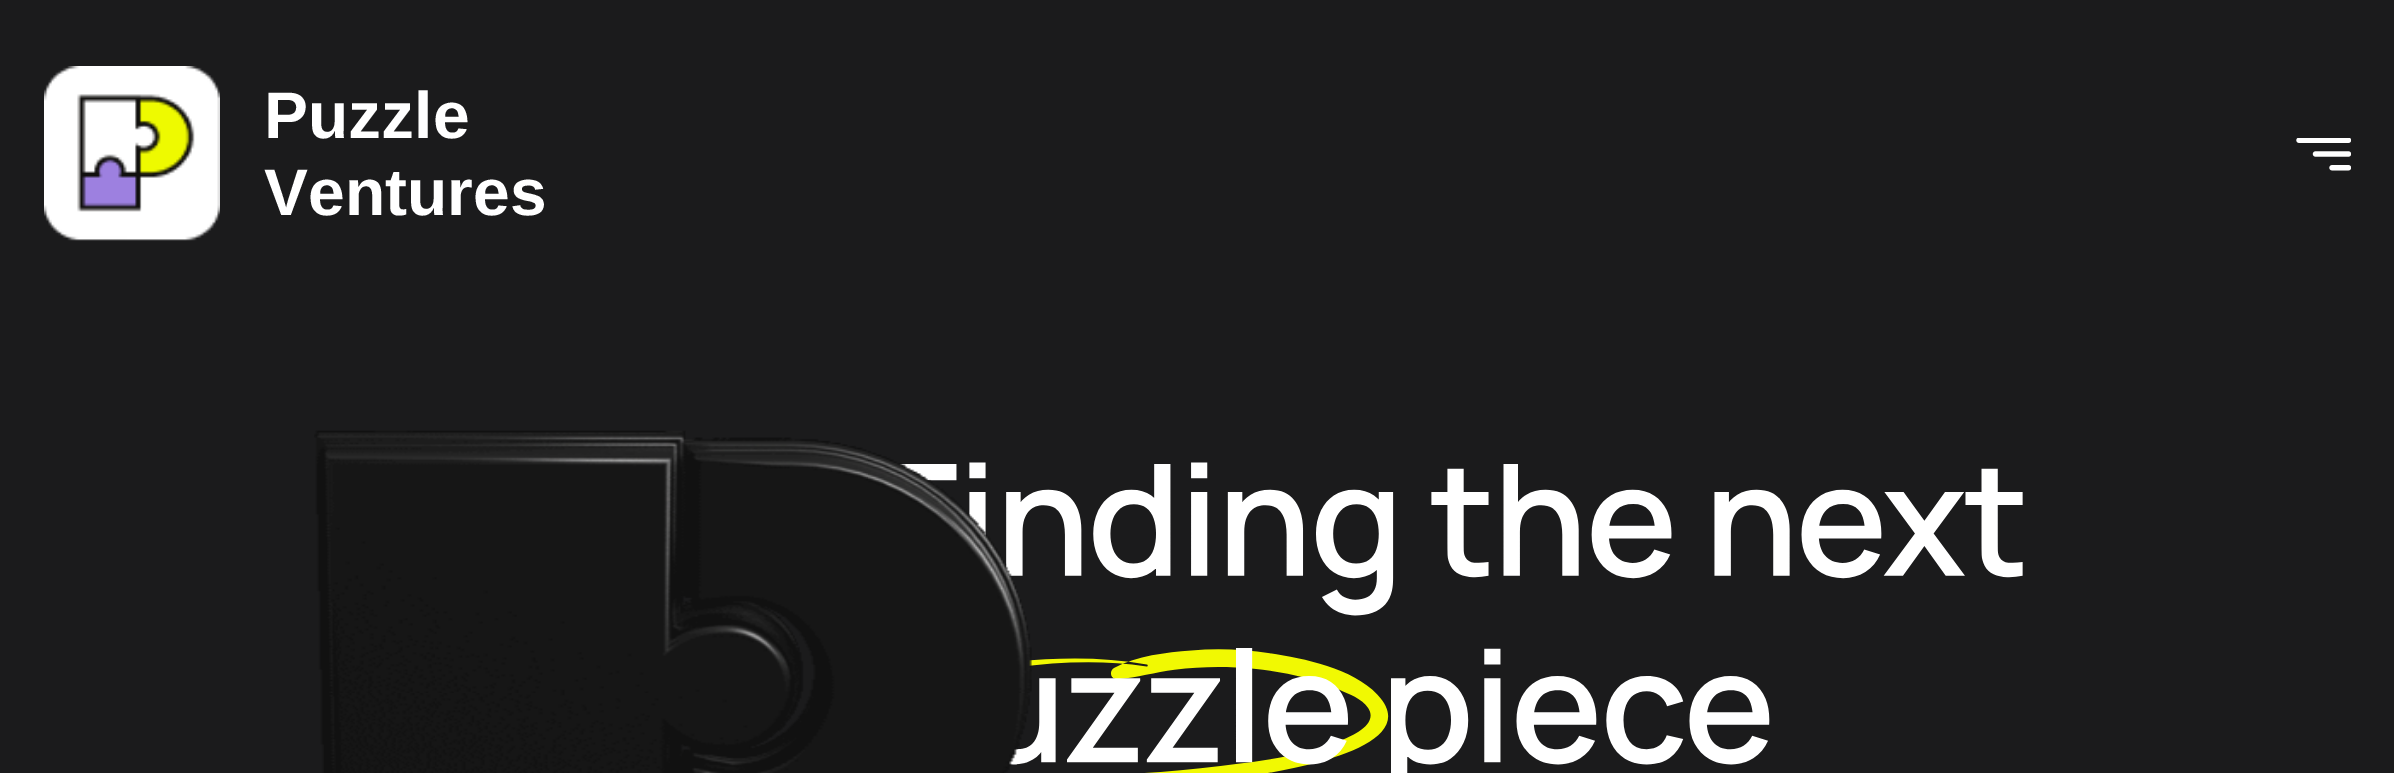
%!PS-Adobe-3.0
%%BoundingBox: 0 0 2394 773
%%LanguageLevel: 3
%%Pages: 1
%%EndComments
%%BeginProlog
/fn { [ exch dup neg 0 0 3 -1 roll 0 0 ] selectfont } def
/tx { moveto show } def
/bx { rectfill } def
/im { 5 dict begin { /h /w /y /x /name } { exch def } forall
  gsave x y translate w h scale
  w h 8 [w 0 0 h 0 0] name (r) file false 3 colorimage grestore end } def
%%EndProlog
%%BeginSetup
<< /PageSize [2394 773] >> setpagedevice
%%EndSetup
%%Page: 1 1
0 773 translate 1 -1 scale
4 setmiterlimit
0.106 0.106 0.11 setrgbcolor
0 0 2394 773 bx
(image0.raw) 44 66 176 175 im
/LiberationSans-Bold 66 fn
1 setgray
(Puzzle) 264 138 tx
(Ventures) 264 215 tx
(image1.raw) 2296 138 55 33 im
(image3.raw) 899 462 1124 311 im
(image2.raw) 314 430 718 343 im
showpage
%%EOF
